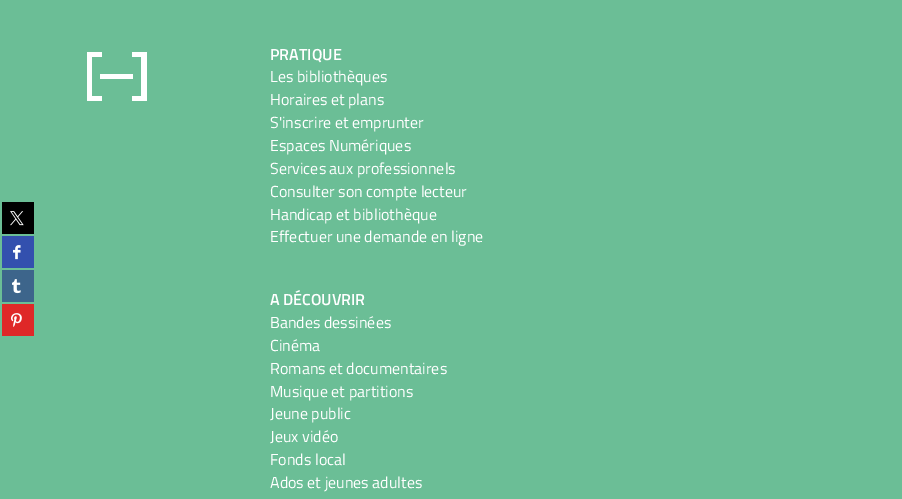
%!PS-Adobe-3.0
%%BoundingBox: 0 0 902 499
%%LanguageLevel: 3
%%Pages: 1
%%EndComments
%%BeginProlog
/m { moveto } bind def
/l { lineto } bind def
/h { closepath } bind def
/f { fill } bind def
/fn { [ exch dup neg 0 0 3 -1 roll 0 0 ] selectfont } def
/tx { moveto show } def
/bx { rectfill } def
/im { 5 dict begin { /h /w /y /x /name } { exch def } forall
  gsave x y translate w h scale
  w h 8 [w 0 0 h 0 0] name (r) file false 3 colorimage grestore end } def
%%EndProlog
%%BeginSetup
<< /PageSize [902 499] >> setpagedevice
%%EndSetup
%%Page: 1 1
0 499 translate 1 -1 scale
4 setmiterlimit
0.42 0.745 0.588 setrgbcolor
0 0 902 499 bx
0 setgray
2 202 32 32 bx
(image0.raw) 10 211 14 15 im
0.2 0.314 0.682 setrgbcolor
2 236 32 32 bx
(image1.raw) 13 245 8 15 im
0.239 0.396 0.545 setrgbcolor
2 270 32 32 bx
(image2.raw) 12 279 9 15 im
0.875 0.157 0.157 setrgbcolor
2 304 32 32 bx
(image3.raw) 11 313 11 14 im
1 setgray
100 74 m 133 74 l 133 79 l 100 79 l h 92 57 m 102 57 l 102 52 l 87 52 l 87 101 l 102 101 l 102 96 l 92 96 l h 132 52 m 132 57 l 141 57 l 141 96 l 132 96 l 132 101 l 147 101 l 147 52 l h f
/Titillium-SemiBold 16 fn
(PRATIQUE) 270 60 tx
/Titillium-Regular 16 fn
(Les bibliothèques) 270 82 tx
(Horaires et plans) 270 105 tx
(S'inscrire et emprunter) 270 128 tx
(Espaces Numériques) 270 151 tx
(Services aux professionnels) 270 174 tx
(Consulter son compte lecteur) 270 197 tx
(Handicap et bibliothèque) 270 220 tx
(Effectuer une demande en ligne) 270 242 tx
/Titillium-SemiBold 16 fn
(A DÉCOUVRIR) 270 305 tx
/Titillium-Regular 16 fn
(Bandes dessinées) 270 328 tx
(Cinéma) 270 351 tx
(Romans et documentaires) 270 374 tx
(Musique et partitions) 270 397 tx
(Jeune public) 270 419 tx
(Jeux vidéo) 270 442 tx
(Fonds local) 270 465 tx
(Ados et jeunes adultes) 270 488 tx
showpage
%%EOF
